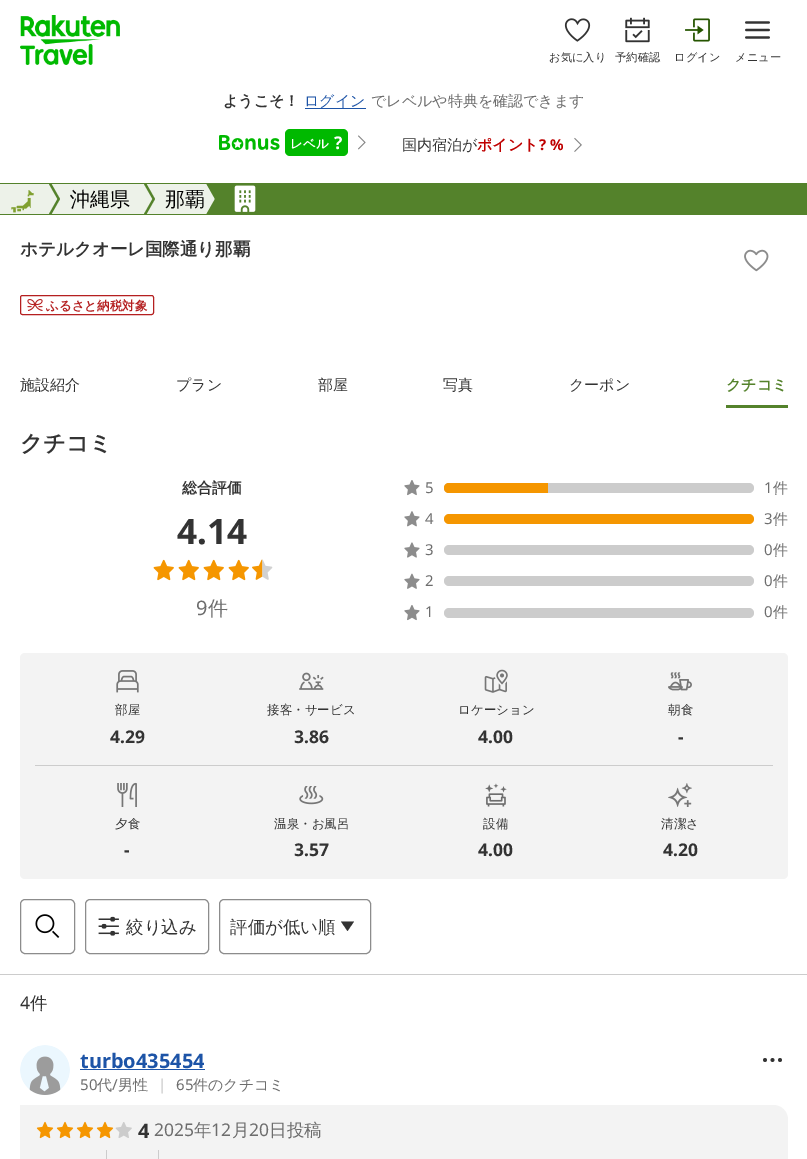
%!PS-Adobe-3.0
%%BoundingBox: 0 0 807 1159
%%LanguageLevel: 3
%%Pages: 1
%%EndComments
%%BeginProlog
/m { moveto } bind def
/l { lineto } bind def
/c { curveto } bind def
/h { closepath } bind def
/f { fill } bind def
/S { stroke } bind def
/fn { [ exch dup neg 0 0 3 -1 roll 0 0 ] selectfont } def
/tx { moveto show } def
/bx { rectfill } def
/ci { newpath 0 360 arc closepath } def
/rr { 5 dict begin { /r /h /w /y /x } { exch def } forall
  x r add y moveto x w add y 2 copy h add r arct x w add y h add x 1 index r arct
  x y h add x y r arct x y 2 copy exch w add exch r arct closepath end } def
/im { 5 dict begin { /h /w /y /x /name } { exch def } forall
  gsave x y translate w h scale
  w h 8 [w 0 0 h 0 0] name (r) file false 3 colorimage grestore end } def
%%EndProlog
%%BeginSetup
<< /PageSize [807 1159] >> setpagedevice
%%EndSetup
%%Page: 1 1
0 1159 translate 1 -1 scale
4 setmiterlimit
1 setgray
0 0 807 1159 bx
(image0.raw) 20 15 100 50 im
(image1.raw) 564 18 27 24 im
/WenQuanYiZenHei-Medium 11.25 fn
0.2 setgray
(お気に入り) 549 61 tx
(image2.raw) 625 17 25 26 im
(予約確認) 615 61 tx
(image3.raw) 685 18 25 24 im
(ログイン) 674 61 tx
(image4.raw) 745 21 25 18 im
(メニュー) 735 61 tx
/WenQuanYiZenHei-Bold 15 fn
(ようこそ！) 223 106 tx
/WenQuanYiZenHei-Medium 15 fn
0.114 0.329 0.655 setrgbcolor
(ログイン) 304 106 tx
305 108 61 1 bx
0.427 setgray
(でレベルや特典を確認できます) 371 106 tx
(image5.raw) 219 135 61 15 im
0 0.725 0 setrgbcolor
285 129 63 27 5 rr f
/WenQuanYiZenHei-Bold 12.5 fn
1 setgray
(レベル) 290 148 tx
/NotoSans-Bold 17.5 fn
(?) 334 149 tx
(image6.raw) 358 135 8 15 im
/WenQuanYiZenHei-Medium 15 fn
0.2 setgray
(国内宿泊が) 402 150 tx
/WenQuanYiZenHei-Bold 15 fn
0.749 0 0 setrgbcolor
(ポイント) 477 150 tx
/NotoSans-Bold 15 fn
(? %) 539 150 tx
(image7.raw) 574 137 8 15 im
0.329 0.51 0.169 setrgbcolor
0 183 807 1 bx
0 214 807 1 bx
0.929 0.949 0.914 setrgbcolor
0 184 215 30 bx
(image8.raw) 11 190 23 23 im
0.329 0.51 0.169 setrgbcolor
49 184 m 51.5 184 l 60 199 l 57.5 199 l h 57.5 199 m 60 199 l 51.5 214 l 49 214 l h f
/WenQuanYiZenHei-Medium 20 fn
0 setgray
(沖縄県) 70 206 tx
0.329 0.51 0.169 setrgbcolor
144 184 m 146.5 184 l 155 199 l 152.5 199 l h 152.5 199 m 155 199 l 146.5 214 l 144 214 l h f
0 setgray
(那覇) 165 206 tx
0.329 0.51 0.169 setrgbcolor
221 184 586 30 bx
206.5 184 m 221.5 184 l 230 199 l 215 199 l h 215 199 m 230 199 l 221.5 214 l 206.5 214 l h f
(image9.raw) 234 185 22 27 im
/WenQuanYiZenHei-Bold 17.5 fn
0.2 setgray
(ホテルクオーレ国際通り那覇) 20 255 tx
(image10.raw) 744 249 25 23 im
0.71 0.122 0.125 setrgbcolor
20.5 295.5 133 19 2 rr S
(image11.raw) 27 299 16 12 im
/WenQuanYiZenHei-Bold 12.5 fn
(ふるさと納税対象) 46 310 tx
/WenQuanYiZenHei-Medium 15 fn
0.2 setgray
(施設紹介) 20 390 tx
(プラン) 176 390 tx
(部屋) 318 390 tx
(写真) 443 390 tx
(クーポン) 569 390 tx
0.329 0.51 0.169 setrgbcolor
726 405 62 3 bx
/WenQuanYiZenHei-Bold 15 fn
(クチコミ) 726 390 tx
/WenQuanYiZenHei-Bold 22.5 fn
0.2 setgray
(クチコミ) 20 451 tx
/WenQuanYiZenHei-Bold 15 fn
(総合評価) 182 493 tx
/NotoSans-Bold 35 fn
(4.14) 177 544 tx
(image12.raw) 153 559 21 22 im
(image12.raw) 178 559 21 22 im
(image12.raw) 203 559 21 22 im
(image12.raw) 228 559 21 22 im
(image13.raw) 252 559 21 21 im
/NotoSans-Regular 20 fn
0.427 setgray
(9) 196 615 tx
/WenQuanYiZenHei-Medium 20 fn
(件) 208 615 tx
(image14.raw) 404 480 16 16 im
/NotoSans-Regular 15 fn
(5) 425 493 tx
0.8 setgray
444 483 310 10 5 rr f
0.961 0.588 0 setrgbcolor
449 483 m 548 483 l 548 493 l 449 493 l 446 493 444 491 444 488 c 444 485 446 483 449 483 c h f
0.427 setgray
(1) 764 493 tx
/WenQuanYiZenHei-Medium 15 fn
(件) 773 493 tx
(image15.raw) 404 511 16 16 im
/NotoSans-Regular 15 fn
(4) 425 524 tx
0.961 0.588 0 setrgbcolor
444 514 310 10 5 rr f
0.427 setgray
(3) 764 524 tx
/WenQuanYiZenHei-Medium 15 fn
(件) 773 524 tx
(image16.raw) 404 542 16 16 im
/NotoSans-Regular 15 fn
(3) 425 555 tx
0.8 setgray
444 545 310 10 5 rr f
0.427 setgray
(0) 764 555 tx
/WenQuanYiZenHei-Medium 15 fn
(件) 773 555 tx
(image17.raw) 404 573 16 16 im
/NotoSans-Regular 15 fn
(2) 425 586 tx
0.8 setgray
444 576 310 10 5 rr f
0.427 setgray
(0) 764 586 tx
/WenQuanYiZenHei-Medium 15 fn
(件) 773 586 tx
(image14.raw) 404 605 16 16 im
/NotoSans-Regular 15 fn
(1) 425 617 tx
0.8 setgray
444 608 310 10 5 rr f
0.427 setgray
(0) 764 617 tx
/WenQuanYiZenHei-Medium 15 fn
(件) 773 617 tx
0.953 setgray
20 653 768 226 5 rr f
0.8 setgray
35 765 738 1 bx
(image18.raw) 116 670 23 23 im
/WenQuanYiZenHei-Medium 12.5 fn
0.2 setgray
(部屋) 115 714 tx
/NotoSans-Bold 17.5 fn
(4.29) 110 743 tx
(image19.raw) 299 672 25 18 im
/WenQuanYiZenHei-Medium 12.5 fn
(接客・サービス) 267 714 tx
/NotoSans-Bold 17.5 fn
(3.86) 294 743 tx
(image20.raw) 484 669 24 24 im
/WenQuanYiZenHei-Medium 12.5 fn
(ロケーション) 458 714 tx
/NotoSans-Bold 17.5 fn
(4.00) 478 743 tx
(image21.raw) 668 672 24 19 im
/WenQuanYiZenHei-Medium 12.5 fn
(朝食) 668 714 tx
/NotoSans-Bold 17.5 fn
(-) 678 743 tx
(image22.raw) 117 782 20 25 im
/WenQuanYiZenHei-Medium 12.5 fn
(夕食) 115 828 tx
/NotoSans-Bold 17.5 fn
(-) 124 856 tx
(image23.raw) 299 786 25 19 im
/WenQuanYiZenHei-Medium 12.5 fn
(温泉・お風呂) 274 828 tx
/NotoSans-Bold 17.5 fn
(3.57) 294 856 tx
(image24.raw) 485 783 22 24 im
/WenQuanYiZenHei-Medium 12.5 fn
(設備) 483 828 tx
/NotoSans-Bold 17.5 fn
(4.00) 478 856 tx
(image25.raw) 668 783 24 24 im
/WenQuanYiZenHei-Medium 12.5 fn
(清潔さ) 661 828 tx
/NotoSans-Bold 17.5 fn
(4.20) 663 856 tx
0.549 setgray
20.5 899.5 54 54 4.5 rr S
(image26.raw) 35 914 25 24 im
85.5 899.5 123 54 4.5 rr S
(image27.raw) 98 916 21 20 im
/WenQuanYiZenHei-Medium 17.5 fn
0.2 setgray
(絞り込み) 126 933 tx
0.549 setgray
219.5 899.5 151 54 4.5 rr S
0.2 setgray
(評価が低い順) 230 933 tx
347.5 931 m 341 921.5 l 354 921.5 l h eofill
0.8 setgray
0 974 807 1 bx
/NotoSans-Regular 17.5 fn
0.2 setgray
(4) 20 1009 tx
/WenQuanYiZenHei-Medium 17.5 fn
(件) 30 1009 tx
(image28.raw) 20 1045 50 50 im
/NotoSans-Bold 20 fn
0.114 0.329 0.655 setrgbcolor
(turbo435454) 80 1068 tx
80 1069 125 1 bx
/NotoSans-Regular 15 fn
0.427 setgray
(50) 80 1090 tx
/WenQuanYiZenHei-Medium 15 fn
(代) 97 1090 tx
/NotoSans-Regular 15 fn
(/) 112 1090 tx
/WenQuanYiZenHei-Medium 15 fn
(男性) 118 1090 tx
/NotoSans-Regular 15 fn
0.8 setgray
(|) 158 1090 tx
0.427 setgray
(65) 176 1090 tx
/WenQuanYiZenHei-Medium 15 fn
(件のクチコミ) 193 1090 tx
0.2 setgray
765 1060 1.9 ci f
772.5 1060 1.9 ci f
780 1060 1.9 ci f
0.953 setgray
20 1105 m 773 1105 l 781.5 1105 788 1111.5 788 1120 c 788 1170 l 20 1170 l h f
(image29.raw) 36 1121 18 18 im
(image29.raw) 56 1121 18 18 im
(image29.raw) 76 1121 18 18 im
(image29.raw) 96 1121 18 18 im
(image30.raw) 115 1122 17 16 im
/NotoSans-Bold 20 fn
0.2 setgray
(4) 138 1138 tx
/NotoSans-Regular 17.5 fn
0.427 setgray
(2025) 154 1136 tx
/WenQuanYiZenHei-Medium 17.5 fn
(年) 194 1136 tx
/NotoSans-Regular 17.5 fn
(12) 211 1136 tx
/WenQuanYiZenHei-Medium 17.5 fn
(月) 232 1136 tx
/NotoSans-Regular 17.5 fn
(20) 249 1136 tx
/WenQuanYiZenHei-Medium 17.5 fn
(日投稿) 269 1136 tx
0.8 setgray
106 1150 1 9 bx
158 1150 1 9 bx
showpage
%%EOF
